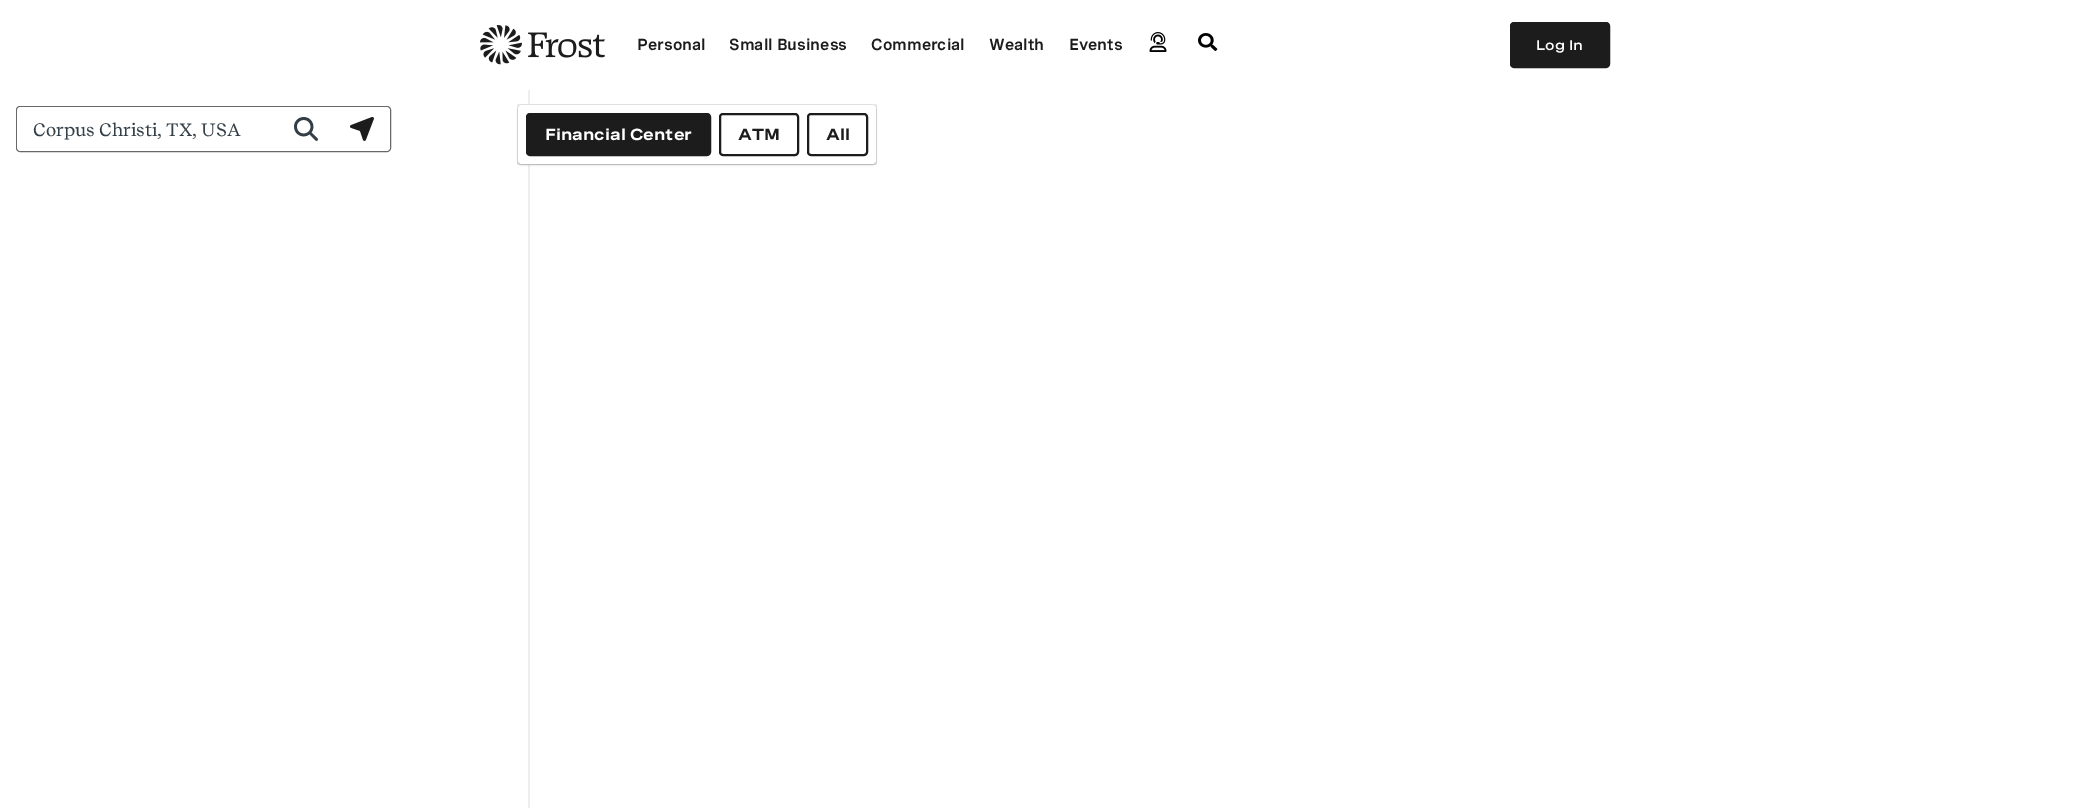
%!PS-Adobe-3.0
%%BoundingBox: 0 0 2089 808
%%LanguageLevel: 3
%%Pages: 1
%%EndComments
%%BeginProlog
/m { moveto } bind def
/l { lineto } bind def
/c { curveto } bind def
/h { closepath } bind def
/f { fill } bind def
/S { stroke } bind def
/q { gsave } bind def
/Q { grestore } bind def
/w { setlinewidth } bind def
/fn { [ exch dup neg 0 0 3 -1 roll 0 0 ] selectfont } def
/tx { moveto show } def
/bx { rectfill } def
/al { dup .setfillconstantalpha .setstrokeconstantalpha } def
/rr { 5 dict begin { /r /h /w /y /x } { exch def } forall
  x r add y moveto x w add y 2 copy h add r arct x w add y h add x 1 index r arct
  x y h add x y r arct x y 2 copy exch w add exch r arct closepath end } def
/sh { 12 dict begin { /a /b /q /h /w /y /x } { exch def } forall gsave /was 0 def
  9 -2 -9 { dup b mul 4 div /e exch def 1 sub .425 mul 2.718 exch exp 1 add a .99 .min exch div /now exch def
    1 1 now sub 1 was sub div sub al /was now def
    w h .min e 2 mul add 0 gt { x e sub y e sub w e 2 mul add h e 2 mul add
      q e add b .6 mul add w h .min 2 div e add .min 0 .max rr fill } if } for grestore end } def
/im { 5 dict begin { /h /w /y /x /name } { exch def } forall
  gsave x y translate w h scale
  w h 8 [w 0 0 h 0 0] name (r) file false 3 colorimage grestore end } def
%%EndProlog
%%BeginSetup
<< /PageSize [2089 808] /PageUsesTransparency true >> setpagedevice
%%EndSetup
%%Page: 1 1
0 .pushpdf14devicefilter
0 808 translate 1 -1 scale
4 setmiterlimit
1 setgray
0 0 2089 808 bx
(image0.raw) 480 25 125 40 im
/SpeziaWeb-SemiBold 16 fn
0.11 setgray
(Personal) 637 50 tx
(Small Business) 729 50 tx
(Commercial) 871 50 tx
(Wealth) 989 50 tx
(Events) 1069 50 tx
(image1.raw) 1149 32 18 20 im
(image2.raw) 1198 33 20 18 im
1511 23 98 44 3 rr q f Q
2 w
S
/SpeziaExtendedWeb-SemiBold 14 fn
1 setgray
(Log In) 1536 50 tx
0.933 setgray
528 90 2 718 bx
0.408 0.408 0.412 setrgbcolor
1 w
16.5 106.5 374 45 3.5 rr S
1 setgray
21 107 m 334 107 l 334 151 l 21 151 l 19 151 17 149 17 147 c 17 111 l 17 109 19 107 21 107 c h f
/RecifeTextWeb-Regular 18 fn
0.2 0.247 0.282 setrgbcolor
(Corpus Christi, TX, USA) 33 136 tx
(image3.raw) 294 117 24 24 im
1 setgray
334 107 m 386 107 l 388 107 390 109 390 111 c 390 147 l 390 149 388 151 386 151 c 334 151 l h f
(image4.raw) 350 117 24 24 im
0.933 setgray
517 104 360 61 bx
q
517 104 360 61 rectclip
0 setgray
518 106 358 59 4 2.5 0.13 sh
Q
0 setgray
518 106 358 59 4 1 0.2 sh
1 setgray
518 105 358 59 4 rr f
0.11 setgray
527 114 183 41 3 rr q f Q
2 w
S
/SpeziaExtendedWeb-Bold 16 fn
1 setgray
(Financial Center) 545 140 tx
0.11 setgray
720 114 78 41 3 rr S
(ATM) 738 140 tx
808 114 59 41 3 rr S
(All) 826 140 tx
.poppdf14devicefilter showpage
%%EOF
